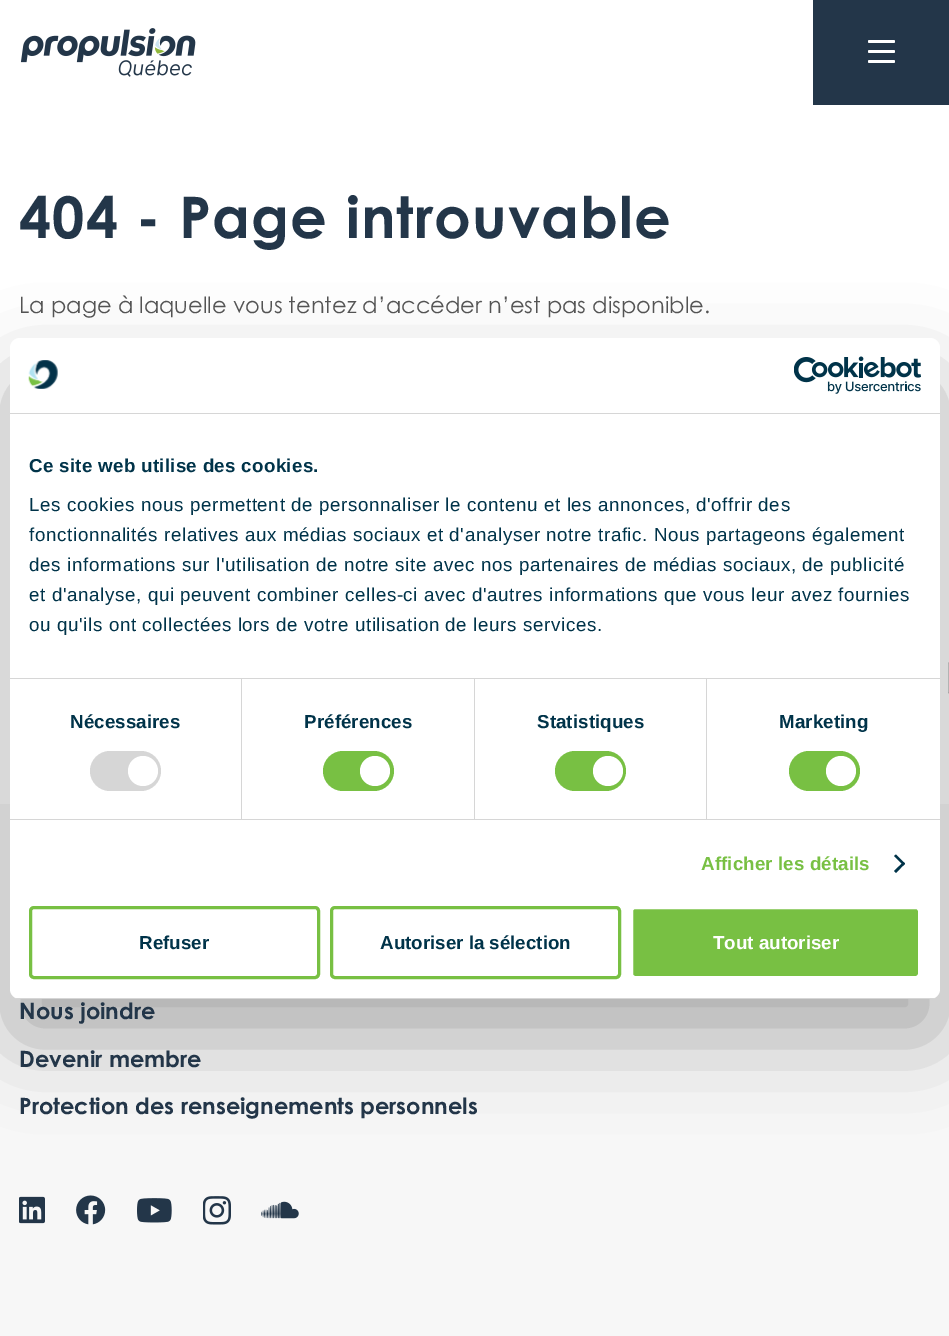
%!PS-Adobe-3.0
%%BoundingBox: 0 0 949 1336
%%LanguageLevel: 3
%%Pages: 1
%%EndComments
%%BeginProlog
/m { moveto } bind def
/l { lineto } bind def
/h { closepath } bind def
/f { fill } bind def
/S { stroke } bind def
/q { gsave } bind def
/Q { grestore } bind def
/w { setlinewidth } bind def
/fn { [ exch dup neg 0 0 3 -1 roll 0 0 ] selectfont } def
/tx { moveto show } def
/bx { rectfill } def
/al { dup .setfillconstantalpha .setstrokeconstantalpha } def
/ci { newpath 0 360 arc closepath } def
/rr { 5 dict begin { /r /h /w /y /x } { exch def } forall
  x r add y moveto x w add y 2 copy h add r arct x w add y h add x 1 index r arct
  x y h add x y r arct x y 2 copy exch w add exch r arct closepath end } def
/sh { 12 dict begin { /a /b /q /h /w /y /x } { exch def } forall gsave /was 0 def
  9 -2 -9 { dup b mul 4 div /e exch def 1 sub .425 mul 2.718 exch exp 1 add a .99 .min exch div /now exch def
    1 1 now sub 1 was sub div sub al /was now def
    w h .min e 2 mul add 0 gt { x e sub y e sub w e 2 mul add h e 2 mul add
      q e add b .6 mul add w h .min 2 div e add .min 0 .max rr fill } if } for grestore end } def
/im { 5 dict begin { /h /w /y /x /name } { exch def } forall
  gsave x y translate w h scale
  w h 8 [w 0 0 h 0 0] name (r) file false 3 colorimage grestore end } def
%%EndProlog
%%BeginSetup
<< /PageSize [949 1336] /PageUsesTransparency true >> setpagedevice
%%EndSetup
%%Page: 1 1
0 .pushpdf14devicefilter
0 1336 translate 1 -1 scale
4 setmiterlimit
1 setgray
0 0 949 1336 bx
(image0.raw) 20 28 176 49 im
0.137 0.212 0.286 setrgbcolor
813 0 136 105 bx
1 setgray
868 40 27 3 1.5 rr f
868 50 27 3 1.5 rr f
868 60 27 3 1.5 rr f
/CenturyGothic-Bold 57.5 fn
0.137 0.212 0.286 setrgbcolor
19 238 m 1.15 0 (404 - Page introuvable) ashow
/CenturyGothic-Regular 22.5 fn
0.333 setgray
(La page à laquelle vous tentez d’accéder n’est pas disponible.) 19 313 tx
(image3.raw) 948 662 1 32 im
0.969 setgray
0 804 949 532 bx
0 setgray
10 378 930 661 10 42.5 0.3 sh
1 setgray
10 338 930 661 10 rr f
0.839 setgray
10 413 930 1 bx
(image1.raw) 28 360 30 29 im
(image2.raw) 794 356 127 38 im
10 678 930 1 bx
/LiberationSans-Bold 18.75 fn
0 0.2 0.286 setrgbcolor
29 472 m 0.3 0 (Ce site web utilise des cookies.) ashow
/LiberationSans-Regular 18.75 fn
29 511 m 0.62 0 (Les cookies nous permettent de personnaliser le contenu et les annonces, d'offrir des) ashow
29 541 m 0.62 0 (fonctionnalités relatives aux médias sociaux et d'analyser notre trafic. Nous partageons également) ashow
29 571 m 0.62 0 (des informations sur l'utilisation de notre site avec nos partenaires de médias sociaux, de publicité) ashow
29 601 m 0.62 0 (et d'analyse, qui peuvent combiner celles-ci avec d'autres informations que vous leur avez fournies) ashow
29 631 m 0.62 0 (ou qu'ils ont collectées lors de votre utilisation de leurs services.) ashow
0.839 setgray
10 819 930 1 bx
241 679 1 140 bx
/LiberationSans-Bold 18.75 fn
0 0.2 0.286 setrgbcolor
70 728 m 0.1 0 (Nécessaires) ashow
0.839 setgray
90 751 71 40 20 rr f
1 setgray
143 771 15 ci f
0.839 setgray
474 679 1 140 bx
0 0.2 0.286 setrgbcolor
304 728 m 0.1 0 (Préférences) ashow
0.471 0.753 0.263 setrgbcolor
323 751 71 40 20 rr f
1 setgray
375 771 15 ci f
0.839 setgray
706 679 1 140 bx
0 0.2 0.286 setrgbcolor
537 728 m 0.1 0 (Statistiques) ashow
0.471 0.753 0.263 setrgbcolor
555 751 71 40 20 rr f
1 setgray
608 771 15 ci f
0 0.2 0.286 setrgbcolor
779 728 m 0.1 0 (Marketing) ashow
0.471 0.753 0.263 setrgbcolor
789 751 71 40 20 rr f
1 setgray
841 771 15 ci f
0.471 0.753 0.263 setrgbcolor
701 870 m 0.1 0 (Afficher les détails) ashow
0 0.2 0.286 setrgbcolor
896 854.5 m 905 863.5 l 903.5 865.5 l 894 856 l h f
903.5 862 m 905 863.5 l 896 873 l 894 871 l h f
q
10 338 930 661 10 rr clip newpath
0.839 setgray
10 998 930 1 bx
Q
0.471 0.753 0.263 setrgbcolor
3 w
30.5 907.5 288 70 3.5 rr S
0 0.2 0.286 setrgbcolor
(Refuser) 139 949 tx
0.471 0.753 0.263 setrgbcolor
331.5 907.5 288 70 3.5 rr S
0 0.2 0.286 setrgbcolor
(Autoriser la sélection) 380 949 tx
0.471 0.753 0.263 setrgbcolor
631.5 907.5 288 70 3.5 rr q f Q
1 setgray
S
(Tout autoriser) 713 949 tx
/CenturyGothic-Bold 22.5 fn
0.137 0.212 0.286 setrgbcolor
(Nous joindre) 19 1019 tx
(Devenir membre) 19 1067 tx
(Protection des renseignements personnels) 19 1114 tx
(image4.raw) 19 1196 26 28 im
(image5.raw) 76 1195 30 30 im
(image6.raw) 137 1198 35 25 im
(image7.raw) 203 1196 28 29 im
(image8.raw) 261 1201 38 18 im
.poppdf14devicefilter showpage
%%EOF
